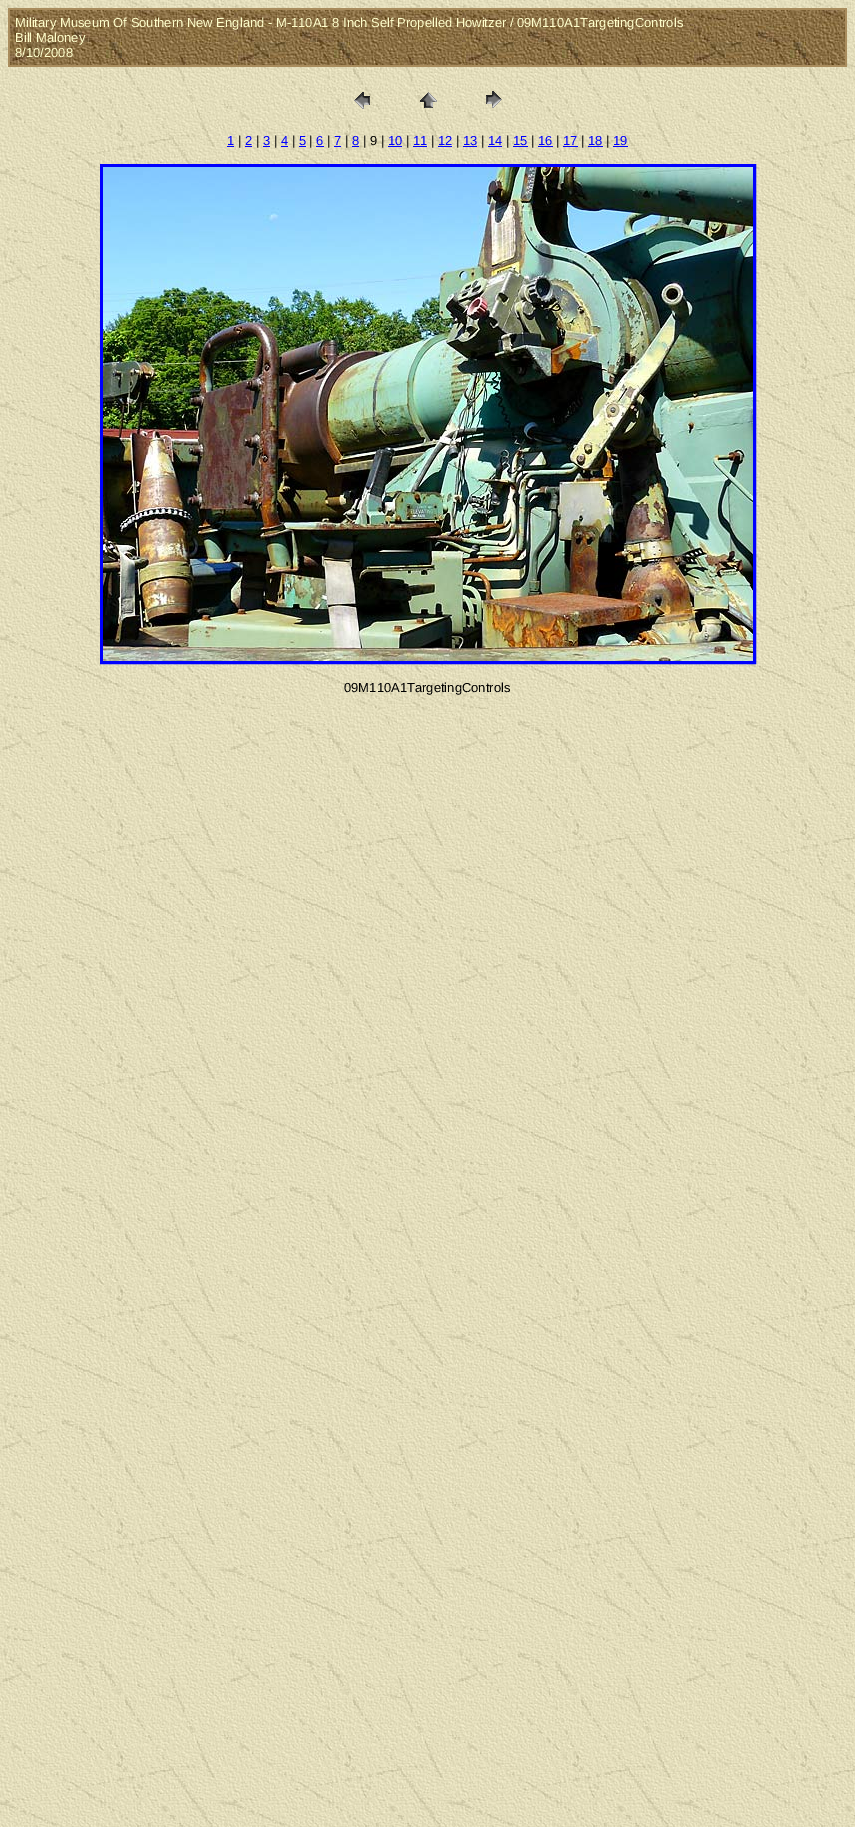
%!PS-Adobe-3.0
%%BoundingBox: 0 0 855 1827
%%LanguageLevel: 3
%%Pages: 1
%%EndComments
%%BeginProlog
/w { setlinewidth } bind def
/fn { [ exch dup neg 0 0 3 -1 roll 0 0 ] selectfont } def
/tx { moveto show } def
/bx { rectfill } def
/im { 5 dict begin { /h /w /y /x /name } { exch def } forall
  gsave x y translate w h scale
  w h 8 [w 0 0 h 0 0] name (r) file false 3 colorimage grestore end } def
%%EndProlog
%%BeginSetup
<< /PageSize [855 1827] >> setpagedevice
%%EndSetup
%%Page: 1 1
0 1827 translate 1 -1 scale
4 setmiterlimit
1 setgray
0 0 855 1827 bx
(image0.raw) 0 0 855 1827 im
0.663 0.549 0.365 setrgbcolor
8 8 839 59 bx
(image1.raw) 10 10 835 55 im
/LiberationSans-Regular 13 fn
1 1 0.8 setrgbcolor
(Military Museum Of Southern New England - M-110A1 8 Inch Self Propelled Howitzer / 09M110A1TargetingControls) 15 27 tx
(Bill Maloney) 15 42 tx
(8/10/2008) 15 57 tx
(image2.raw) 354 92 16 17 im
(image3.raw) 420 92 17 16 im
(image4.raw) 486 91 16 17 im
0 0 1 setrgbcolor
(1) 227 145 tx
227 146 7 1 bx
0 setgray
(|) 238 145 tx
0 0 1 setrgbcolor
(2) 245 145 tx
245 146 7 1 bx
0 setgray
(|) 256 145 tx
0 0 1 setrgbcolor
(3) 263 145 tx
263 146 7 1 bx
0 setgray
(|) 274 145 tx
0 0 1 setrgbcolor
(4) 281 145 tx
281 146 7 1 bx
0 setgray
(|) 292 145 tx
0 0 1 setrgbcolor
(5) 299 145 tx
299 146 7 1 bx
0 setgray
(|) 309 145 tx
0 0 1 setrgbcolor
(6) 316 145 tx
316 146 8 1 bx
0 setgray
(|) 327 145 tx
0 0 1 setrgbcolor
(7) 334 145 tx
334 146 7 1 bx
0 setgray
(|) 345 145 tx
0 0 1 setrgbcolor
(8) 352 145 tx
352 146 7 1 bx
0 setgray
(| 9 |) 363 145 tx
0 0 1 setrgbcolor
(10) 388 145 tx
388 146 14 1 bx
0 setgray
(|) 406 145 tx
0 0 1 setrgbcolor
(11) 413 145 tx
413 146 14 1 bx
0 setgray
(|) 431 145 tx
0 0 1 setrgbcolor
(12) 438 145 tx
438 146 14 1 bx
0 setgray
(|) 456 145 tx
0 0 1 setrgbcolor
(13) 463 145 tx
463 146 14 1 bx
0 setgray
(|) 481 145 tx
0 0 1 setrgbcolor
(14) 488 145 tx
488 146 14 1 bx
0 setgray
(|) 506 145 tx
0 0 1 setrgbcolor
(15) 513 145 tx
513 146 15 1 bx
0 setgray
(|) 531 145 tx
0 0 1 setrgbcolor
(16) 538 145 tx
538 146 15 1 bx
0 setgray
(|) 556 145 tx
0 0 1 setrgbcolor
(17) 563 145 tx
563 146 15 1 bx
0 setgray
(|) 581 145 tx
0 0 1 setrgbcolor
(18) 588 145 tx
588 146 15 1 bx
0 setgray
(|) 606 145 tx
0 0 1 setrgbcolor
(19) 613 145 tx
613 146 15 1 bx
3 w
101.5 165.5 653 497 rectstroke
(image5.raw) 103 167 650 494 im
0 setgray
(09M110A1TargetingControls) 344 692 tx
showpage
%%EOF
